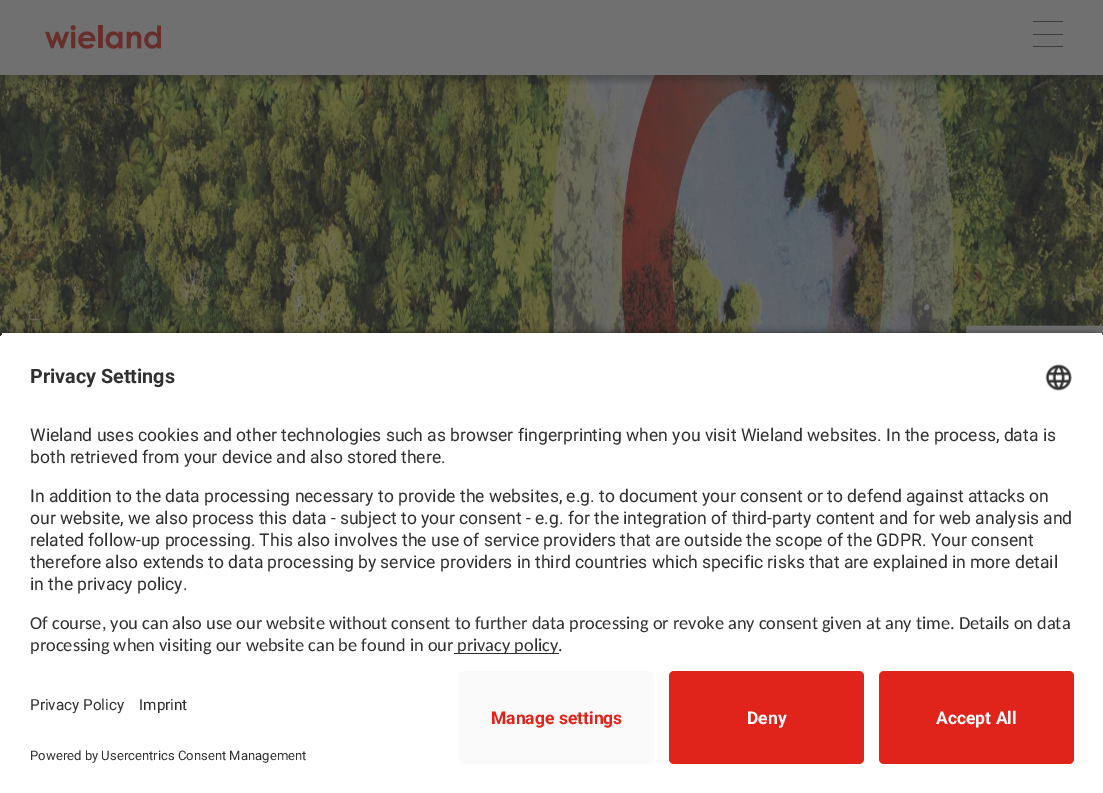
%!PS-Adobe-3.0
%%BoundingBox: 0 0 1103 793
%%LanguageLevel: 3
%%Pages: 1
%%EndComments
%%BeginProlog
/m { moveto } bind def
/l { lineto } bind def
/c { curveto } bind def
/h { closepath } bind def
/f { fill } bind def
/q { gsave } bind def
/Q { grestore } bind def
/fn { [ exch dup neg 0 0 3 -1 roll 0 0 ] selectfont } def
/tx { moveto show } def
/bx { rectfill } def
/al { dup .setfillconstantalpha .setstrokeconstantalpha } def
/rr { 5 dict begin { /r /h /w /y /x } { exch def } forall
  x r add y moveto x w add y 2 copy h add r arct x w add y h add x 1 index r arct
  x y h add x y r arct x y 2 copy exch w add exch r arct closepath end } def
/sh { 12 dict begin { /a /b /q /h /w /y /x } { exch def } forall gsave /was 0 def
  9 -2 -9 { dup b mul 4 div /e exch def 1 sub .425 mul 2.718 exch exp 1 add a .99 .min exch div /now exch def
    1 1 now sub 1 was sub div sub al /was now def
    w h .min e 2 mul add 0 gt { x e sub y e sub w e 2 mul add h e 2 mul add
      q e add b .6 mul add w h .min 2 div e add .min 0 .max rr fill } if } for grestore end } def
/im { 5 dict begin { /h /w /y /x /name } { exch def } forall
  gsave x y translate w h scale
  w h 8 [w 0 0 h 0 0] name (r) file false 3 colorimage grestore end } def
%%EndProlog
%%BeginSetup
<< /PageSize [1103 793] /PageUsesTransparency true >> setpagedevice
%%EndSetup
%%Page: 1 1
0 .pushpdf14devicefilter
0 793 translate 1 -1 scale
4 setmiterlimit
0.439 setgray
0 0 1103 793 bx
(image1.raw) 0 75 1103 266 im
q
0 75 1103 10 rectclip
0.141 setgray
0 6 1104 75 0 3 0.3 sh
Q
(image0.raw) 45 25 116 24 im
0.239 0.239 0.247 setrgbcolor
1033 34 30 1 bx
1033 21 30 1 bx
1033 46 30 1 bx
0.141 setgray
964 329 137 125 0 5 0.3 sh
(image2.raw) 966 324 137 13 im
0 setgray
0 335 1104 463 10 4.5 0.8 sh
q
10 331 m 1094 331 l 1099.5 331 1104 335.5 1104 341 c 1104 661 l 0 661 l 0 341 l 0 335.5 4.5 331 10 331 c h clip newpath
1 setgray
0 333 1103 328 bx
Q
/Roboto-Bold 19.75 fn
0.188 setgray
(Privacy Settings) 30 383 tx
(image3.raw) 1045 364 27 27 im
/Roboto-Regular 17.5 fn
(Wieland uses cookies and other technologies such as browser fingerprinting when you visit Wieland websites. In the process, data is) 30 441 tx
(both retrieved from your device and also stored there.) 30 463 tx
(In addition to the data processing necessary to provide the websites, e.g. to document your consent or to defend against attacks on) 30 502 tx
(our website, we also process this data - subject to your consent - e.g. for the integration of third-party content and for web analysis and) 30 524 tx
(related follow-up processing. This also involves the use of service providers that are outside the scope of the GDPR. Your consent) 30 546 tx
(therefore also extends to data processing by service providers in third countries which specific risks that are explained in more detail) 30 568 tx
(in the privacy policy.) 30 590 tx
/Carlito-Regular 18.33 fn
(Of course, you can also use our website without consent to further data processing or revoke any consent given at any time. Details on data) 30 629 tx
(processing when visiting our website can be found in our) 30 651 tx
454 653 105 1 bx
(privacy policy.) 457 651 tx
1 setgray
0 661 1103 132 bx
/Roboto-Regular 15.25 fn
0.188 setgray
(Privacy Policy) 30 710 tx
(Imprint) 139 710 tx
/Roboto-Regular 13.1 fn
(Powered by Usercentrics Consent Management) 30 760 tx
0.98 setgray
459 671 195 93 5 rr f
/Roboto-Bold 17.5 fn
0.878 0.141 0.106 setrgbcolor
(Manage settings) 491 724 tx
669 671 195 93 5 rr f
0.98 setgray
(Deny) 747 724 tx
0.878 0.141 0.106 setrgbcolor
879 671 195 93 5 rr f
0.98 setgray
(Accept All) 936 724 tx
.poppdf14devicefilter showpage
%%EOF
